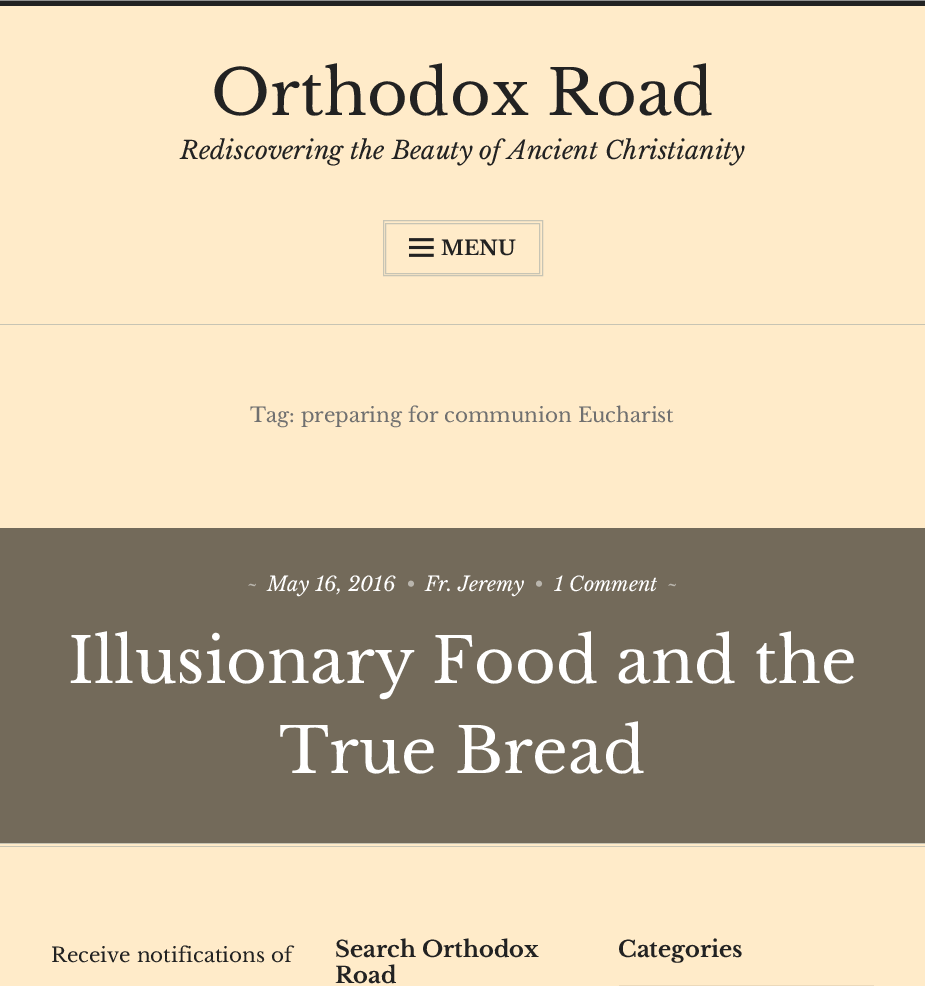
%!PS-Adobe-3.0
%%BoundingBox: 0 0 925 986
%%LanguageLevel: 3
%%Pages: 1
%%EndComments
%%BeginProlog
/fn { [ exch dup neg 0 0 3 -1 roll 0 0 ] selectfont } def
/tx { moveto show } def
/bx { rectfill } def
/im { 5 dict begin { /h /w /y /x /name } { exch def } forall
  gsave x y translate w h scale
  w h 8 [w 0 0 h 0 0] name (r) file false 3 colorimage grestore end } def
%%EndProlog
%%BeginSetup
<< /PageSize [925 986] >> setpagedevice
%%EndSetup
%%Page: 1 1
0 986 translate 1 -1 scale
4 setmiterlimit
1 0.922 0.788 setrgbcolor
0 0 925 986 bx
0.133 setgray
0 1 925 5 bx
0.569 setgray
0 0 925 1 bx
/LibreBaskerville-Regular 62.5 fn
0.133 setgray
(Orthodox Road) 211 115 tx
/LibreBaskerville-Italic 25 fn
(Rediscovering the Beauty of Ancient Christianity) 180 159 tx
0.78 0.769 0.706 setrgbcolor
383.5 220.5 159 55 rectstroke
385.5 223.5 154 50 rectstroke
(image0.raw) 409 238 25 19 im
/LibreBaskerville-Bold 20 fn
0.133 setgray
(MENU) 441 255 tx
0.78 0.769 0.706 setrgbcolor
0 324 925 1 bx
/LibreBaskerville-Regular 20 fn
0.439 setgray
(Tag: preparing for communion Eucharist) 250 422 tx
0.451 0.416 0.353 setrgbcolor
0 528 925 315 bx
/LibreBaskerville-Italic 20 fn
0.725 0.71 0.678 setrgbcolor
(~) 247 591 tx
1 setgray
(May 16, 2016) 267 591 tx
0.725 0.71 0.678 setrgbcolor
(•) 406 591 tx
1 setgray
(Fr. Jeremy) 425 591 tx
0.725 0.71 0.678 setrgbcolor
(•) 534 591 tx
1 setgray
(1 Comment) 554 591 tx
0.725 0.71 0.678 setrgbcolor
(~) 667 591 tx
/LibreBaskerville-Regular 62.5 fn
1 setgray
(Illusionary Food and the) 68 683 tx
(True Bread) 279 773 tx
0.78 0.769 0.706 setrgbcolor
0 843 925 1 bx
0 846 925 1 bx
/LibreBaskerville-Regular 20 fn
0.133 setgray
(Receive notifications of) 51 962 tx
/LibreBaskerville-Bold 22.5 fn
(Search Orthodox) 335 957 tx
(Road) 335 983 tx
(Categories) 618 957 tx
0.925 0.851 0.729 setrgbcolor
619 985 255 1 bx
showpage
%%EOF
